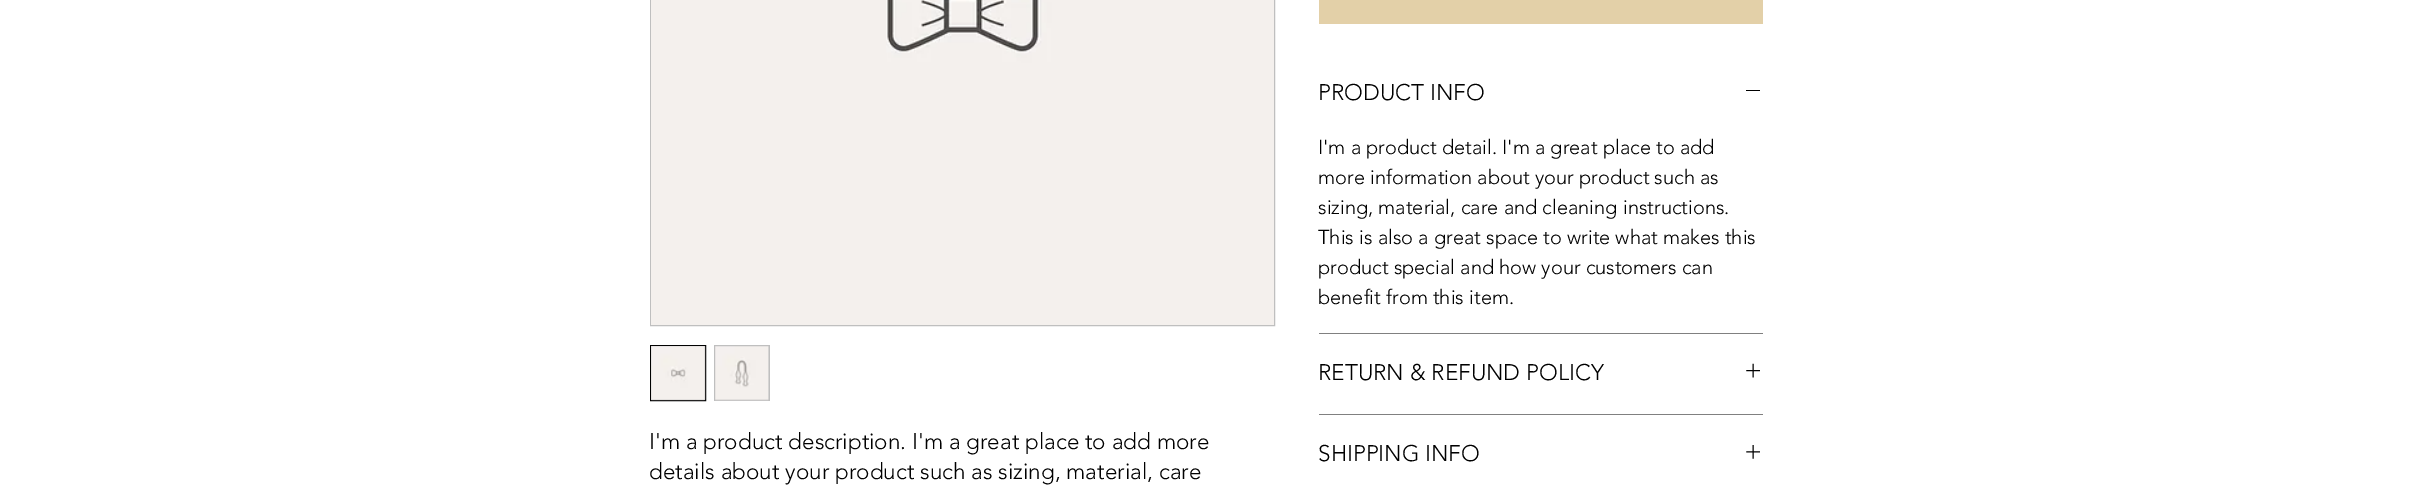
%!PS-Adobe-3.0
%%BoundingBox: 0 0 2411 487
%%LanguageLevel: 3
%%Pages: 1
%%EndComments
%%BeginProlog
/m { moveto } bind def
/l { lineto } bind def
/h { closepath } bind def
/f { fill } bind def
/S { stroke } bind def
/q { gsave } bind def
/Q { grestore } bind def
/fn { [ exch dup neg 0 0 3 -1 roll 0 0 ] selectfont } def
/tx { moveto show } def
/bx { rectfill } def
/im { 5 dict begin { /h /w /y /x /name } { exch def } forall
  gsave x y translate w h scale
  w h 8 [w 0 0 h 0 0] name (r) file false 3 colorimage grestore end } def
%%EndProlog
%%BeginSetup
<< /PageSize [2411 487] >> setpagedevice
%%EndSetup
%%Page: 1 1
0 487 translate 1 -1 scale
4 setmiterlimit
1 setgray
0 0 2411 487 bx
0.749 setgray
650.5 -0.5 624 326 rectstroke
(image0.raw) 651 0 623 325 im
650.5 345.5 m 705.5 345.5 l 705.5 400.5 l 650.5 400.5 l h q f Q
0 setgray
S
(image1.raw) 651 346 55 55 im
0.749 setgray
714 345 56 56 bx
(image2.raw) 715 346 54 55 im
/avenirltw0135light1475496-Light 22.5 fn
0 setgray
(I'm a product description. I'm a great place to add more) 649 449 tx
(details about your product such as sizing, material, care) 649 479 tx
0.89 0.816 0.659 setrgbcolor
1319 0 444 24 bx
0.502 setgray
1319 333 444 1 bx
0 setgray
(PRODUCT INFO) 1318 100 tx
1746 90 14 1 bx
/avenirltw0135light1475496-Light 20 fn
(I'm a product detail. I'm a great place to add) 1318 154 tx
(more information about your product such as) 1318 184 tx
(sizing, material, care and cleaning instructions.) 1318 214 tx
(This is also a great space to write what makes this) 1318 244 tx
(product special and how your customers can) 1318 274 tx
(benefit from this item.) 1318 304 tx
0.502 setgray
1319 414 444 1 bx
/avenirltw0135light1475496-Light 22.5 fn
0 setgray
(RETURN & REFUND POLICY) 1318 380 tx
(image3.raw) 1746 363 14 15 im
(SHIPPING INFO) 1318 461 tx
(image4.raw) 1746 445 14 14 im
showpage
%%EOF
